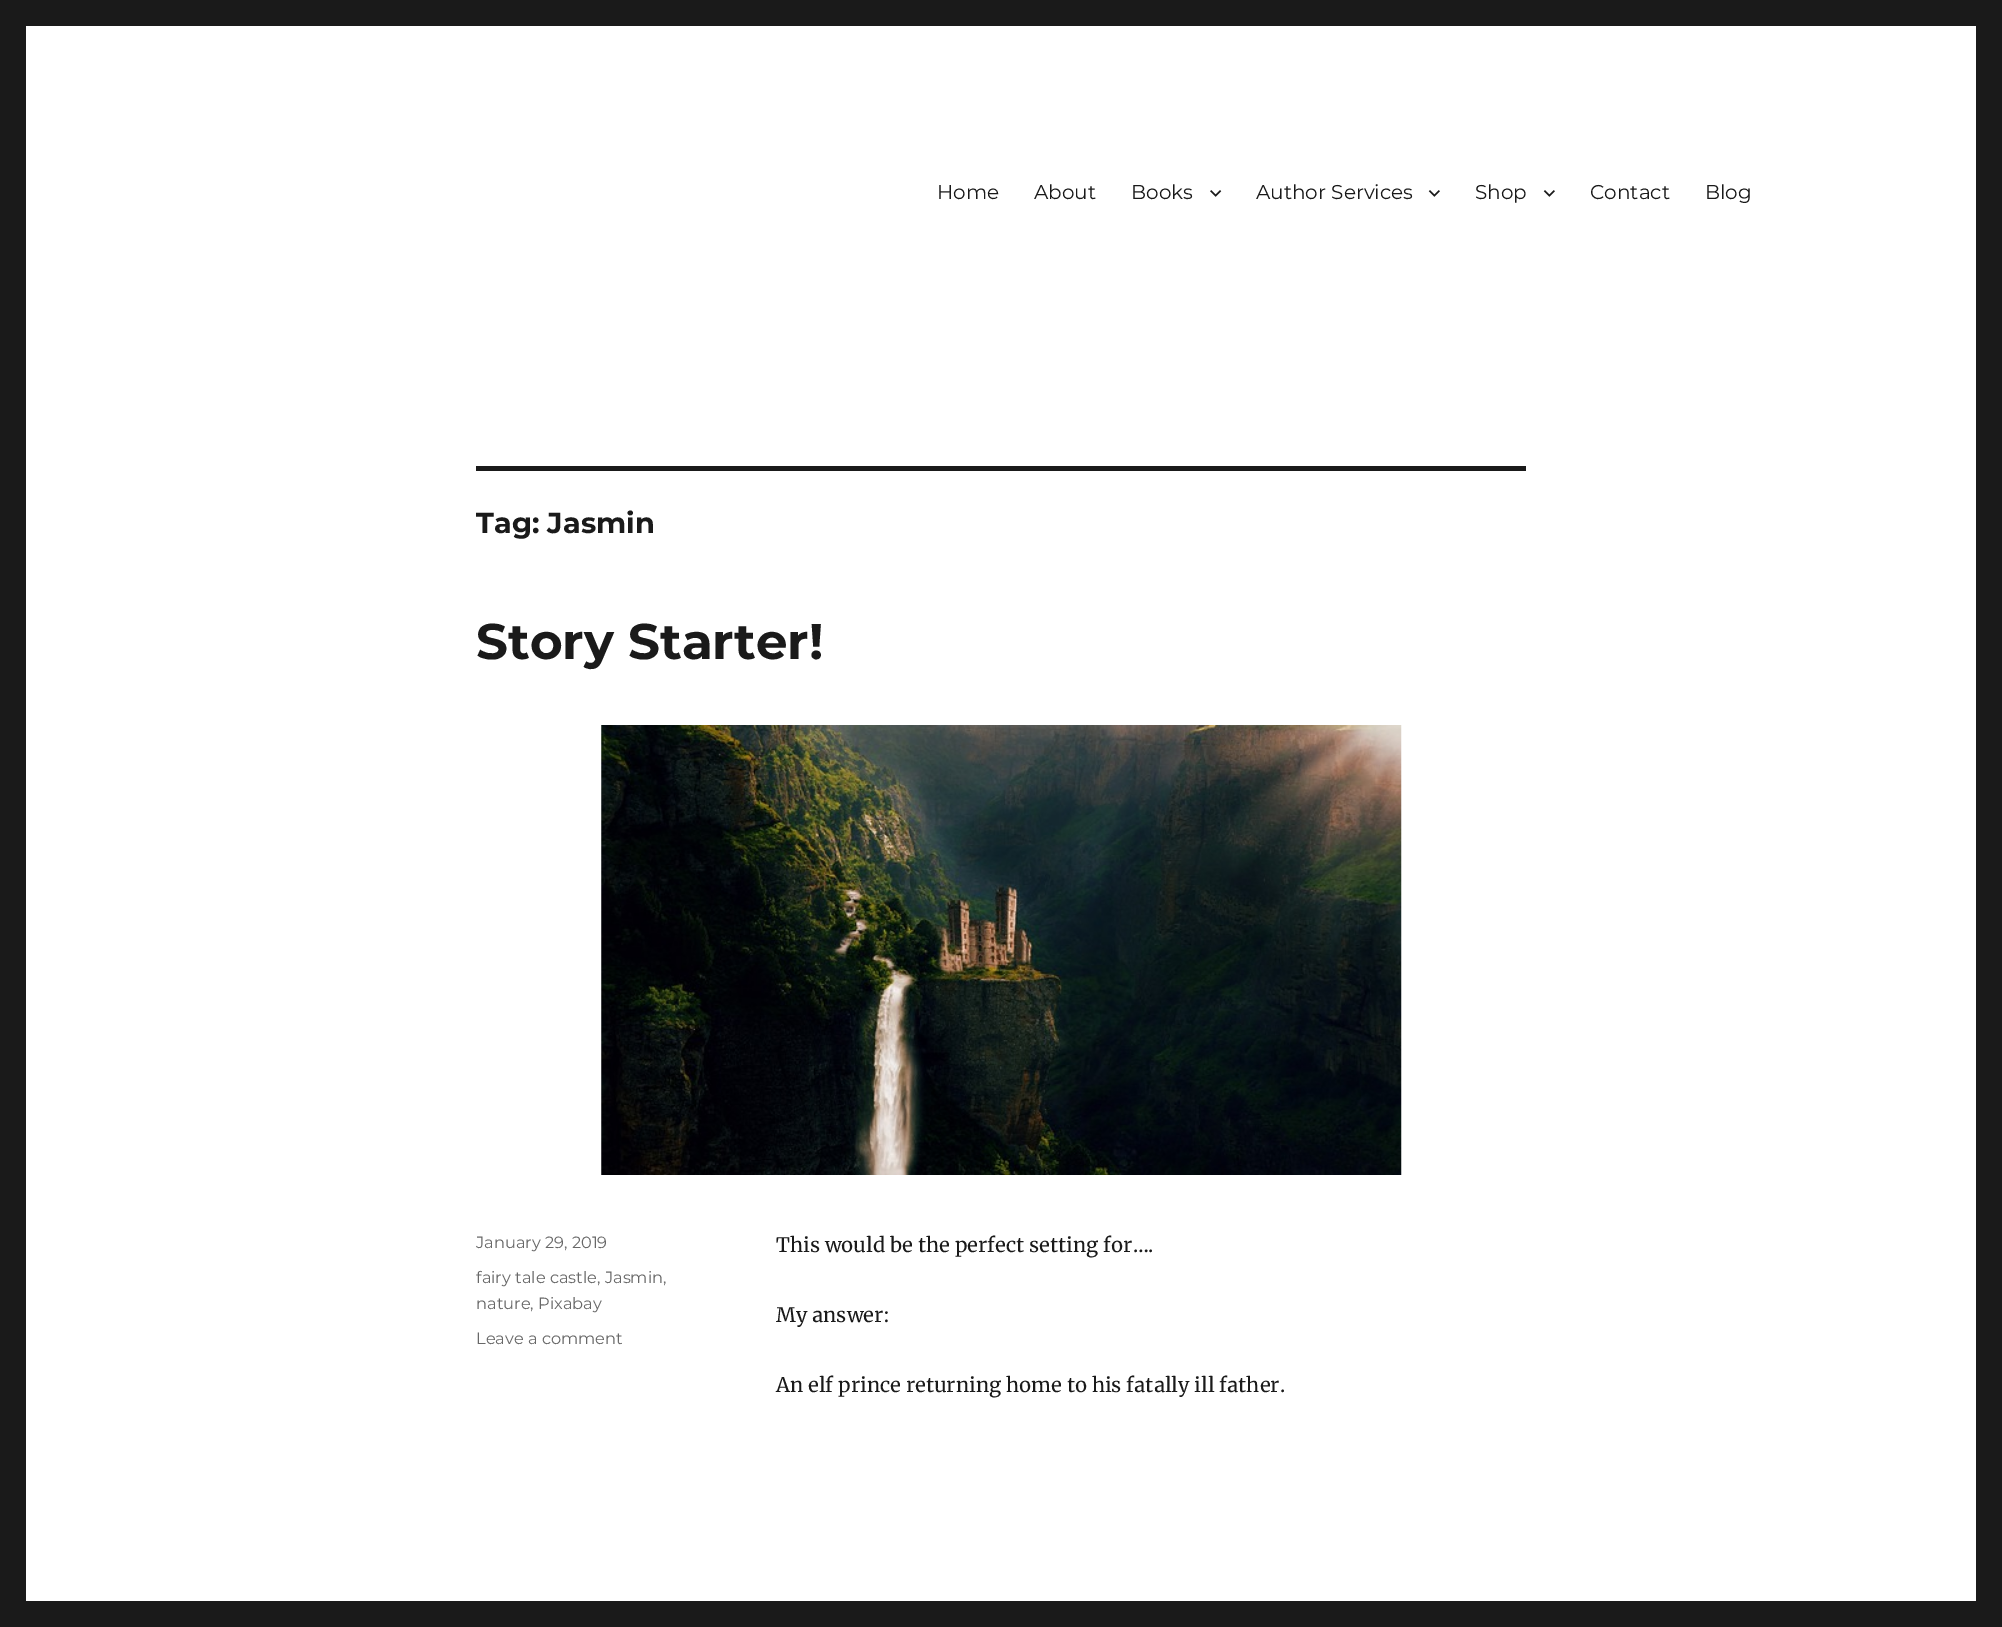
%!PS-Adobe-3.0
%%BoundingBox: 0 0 2002 1627
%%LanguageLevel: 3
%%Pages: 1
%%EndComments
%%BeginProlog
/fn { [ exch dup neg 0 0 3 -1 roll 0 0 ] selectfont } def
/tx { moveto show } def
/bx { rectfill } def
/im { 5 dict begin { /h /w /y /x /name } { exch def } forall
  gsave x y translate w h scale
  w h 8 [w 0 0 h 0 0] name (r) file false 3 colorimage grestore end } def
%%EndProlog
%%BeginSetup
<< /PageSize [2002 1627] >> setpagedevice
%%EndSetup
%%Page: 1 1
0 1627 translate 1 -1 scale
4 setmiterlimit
0.102 setgray
0 0 2002 1627 bx
1 setgray
26 26 1950 1575 bx
/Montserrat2-Thin 20 fn
0.102 setgray
(Home) 937 199 tx
(About) 1034 199 tx
(Books) 1131 199 tx
(image0.raw) 1210 190 12 7 im
(Author Services) 1256 199 tx
(image1.raw) 1428 190 12 7 im
(Shop) 1475 199 tx
(image1.raw) 1543 190 12 7 im
(Contact) 1590 199 tx
(Blog) 1705 199 tx
476 466 1050 5 bx
/Montserrat-Thin 28.75 fn
(Tag: Jasmin) 476 533 tx
/Montserrat-Thin 50 fn
(Story Starter!) 476 659 tx
(image2.raw) 601 725 801 450 im
/Montserrat2-Thin 16.25 fn
0.408 setgray
(January 29, 2019) 476 1248 tx
(fairy tale castle, Jasmin,) 476 1283 tx
(nature, Pixabay) 476 1309 tx
(Leave a comment) 476 1344 tx
/Merriweather-Regular 20 fn
0.102 setgray
(This would be the perfect setting for….) 776 1252 tx
(My answer:) 776 1322 tx
(An elf prince returning home to his fatally ill father.) 776 1392 tx
showpage
%%EOF
